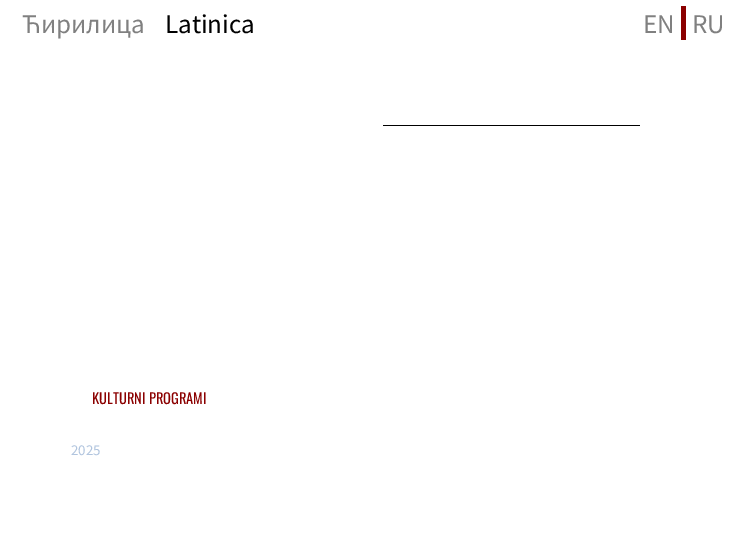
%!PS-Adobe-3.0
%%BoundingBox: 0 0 746 550
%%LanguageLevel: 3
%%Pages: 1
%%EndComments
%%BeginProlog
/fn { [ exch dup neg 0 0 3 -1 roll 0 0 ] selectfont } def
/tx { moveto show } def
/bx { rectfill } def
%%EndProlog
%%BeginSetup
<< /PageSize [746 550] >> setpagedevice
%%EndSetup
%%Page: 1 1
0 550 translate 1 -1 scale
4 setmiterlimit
1 setgray
0 0 746 550 bx
/SourceSansPro-Regular 27 fn
0.502 setgray
(Ћирилица) 22 33 tx
0 setgray
(Latinica) 165 33 tx
0.502 setgray
(EN) 643 33 tx
0.545 0 0 setrgbcolor
681 6 5 34 bx
0.502 setgray
(RU) 692 33 tx
0 setgray
383 125 257 1 bx
/Oswald-Regular 14.5 fn
0.545 0 0 setrgbcolor
(KULTURNI PROGRAMI) 92 404 tx
/SourceSansPro-Regular 15 fn
0.69 0.769 0.871 setrgbcolor
(2025) 71 455 tx
showpage
%%EOF
